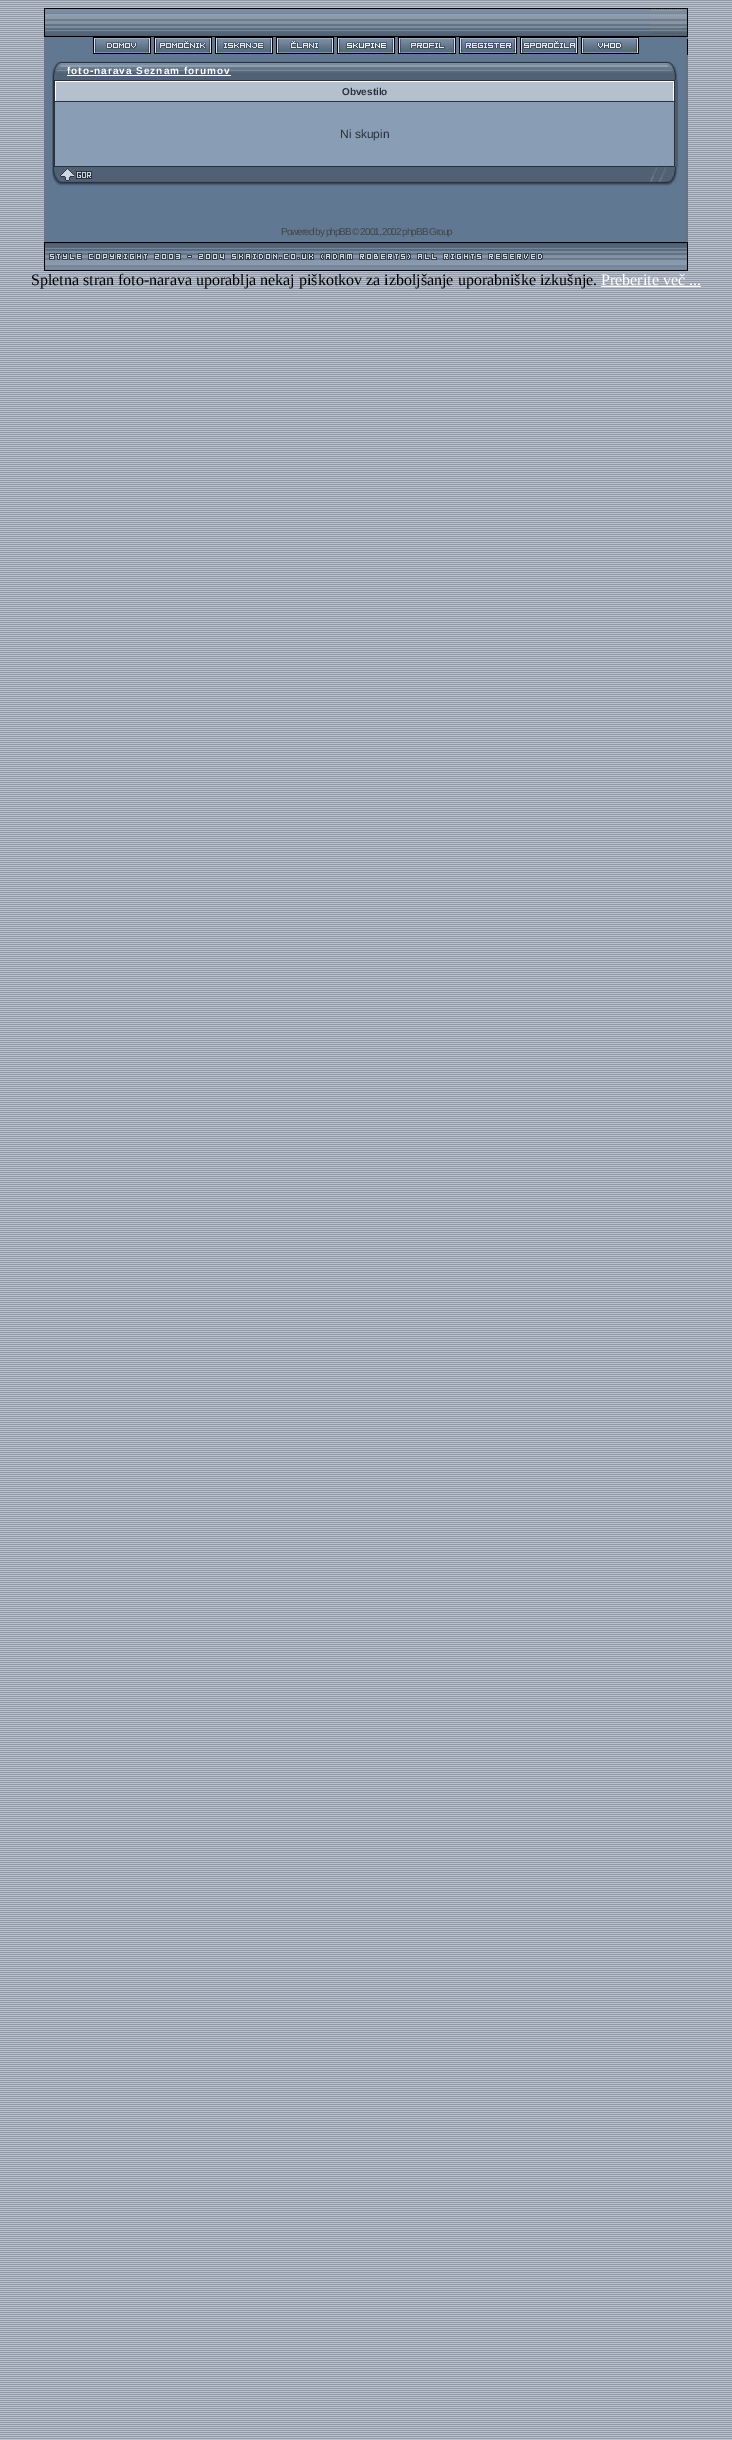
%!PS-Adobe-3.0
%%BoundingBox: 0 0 732 2440
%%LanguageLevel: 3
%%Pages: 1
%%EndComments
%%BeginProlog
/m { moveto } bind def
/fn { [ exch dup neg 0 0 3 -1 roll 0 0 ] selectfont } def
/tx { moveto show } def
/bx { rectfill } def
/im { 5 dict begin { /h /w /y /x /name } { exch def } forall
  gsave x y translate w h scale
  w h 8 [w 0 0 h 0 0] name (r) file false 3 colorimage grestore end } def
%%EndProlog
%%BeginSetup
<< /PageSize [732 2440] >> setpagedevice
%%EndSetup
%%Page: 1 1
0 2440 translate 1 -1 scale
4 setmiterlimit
0.722 0.757 0.816 setrgbcolor
0 0 732 2440 bx
(image0.raw) 0 0 732 2439 im
(image1.raw) 44 8 3 29 im
(image2.raw) 47 8 638 29 im
(image3.raw) 650 8 33 29 im
(image4.raw) 685 8 3 29 im
0.376 0.471 0.573 setrgbcolor
44 37 644 19 bx
0.412 0.463 0.537 setrgbcolor
44 39 3 16 bx
(image5.raw) 93 37 58 17 im
(image6.raw) 154 37 58 17 im
(image7.raw) 215 37 58 17 im
(image8.raw) 276 37 58 17 im
(image9.raw) 337 37 58 17 im
(image10.raw) 398 37 58 17 im
(image11.raw) 459 37 58 17 im
(image12.raw) 520 37 58 17 im
(image13.raw) 581 37 58 17 im
(image14.raw) 686 39 2 16 im
44 56 3 186 bx
0.376 0.471 0.573 setrgbcolor
47 56 638 186 bx
(image15.raw) 52 61 15 19 im
(image16.raw) 67 61 595 19 im
/LiberationSans-Bold 10 fn
1 setgray
67 74 m 1 0 (foto-narava Seznam forumov) ashow
67 75 164 1 bx
(image17.raw) 662 61 18 19 im
(image18.raw) 52 80 2 87 im
0.157 0.192 0.235 setrgbcolor
54 80 621 87 bx
0.71 0.753 0.808 setrgbcolor
56 82 617 19 bx
1 setgray
55 81 619 1 bx
673 81 1 20 bx
55 81 1 20 bx
0.157 0.192 0.235 setrgbcolor
(Obvestilo) 342 95 tx
0.537 0.616 0.706 setrgbcolor
55 102 619 64 bx
/LiberationSans-Regular 12 fn
0.157 0.192 0.235 setrgbcolor
(Ni skupin) 340 138 tx
0.302 0.361 0.435 setrgbcolor
675 80 3 87 bx
(image19.raw) 92 167 1 19 im
(image20.raw) 52 167 40 19 im
(image21.raw) 93 167 555 19 im
(image22.raw) 648 167 32 19 im
/LiberationSans-Regular 10 fn
0.267 setgray
281 235 m -1 0 (Powered by phpBB © 2001, 2002 phpBB Group) ashow
0.388 0.455 0.525 setrgbcolor
685 56 3 186 bx
(image23.raw) 44 242 3 29 im
(image24.raw) 47 242 638 29 im
(image25.raw) 49 253 494 7 im
(image26.raw) 685 242 3 29 im
/LiberationSerif-Regular 16 fn
0 setgray
(Spletna stran foto-narava uporablja nekaj piškotkov za izboljšanje uporabniške izkušnje.) 31 285 tx
1 setgray
(Preberite več ...) 601 285 tx
601 286 100 1 bx
showpage
%%EOF
